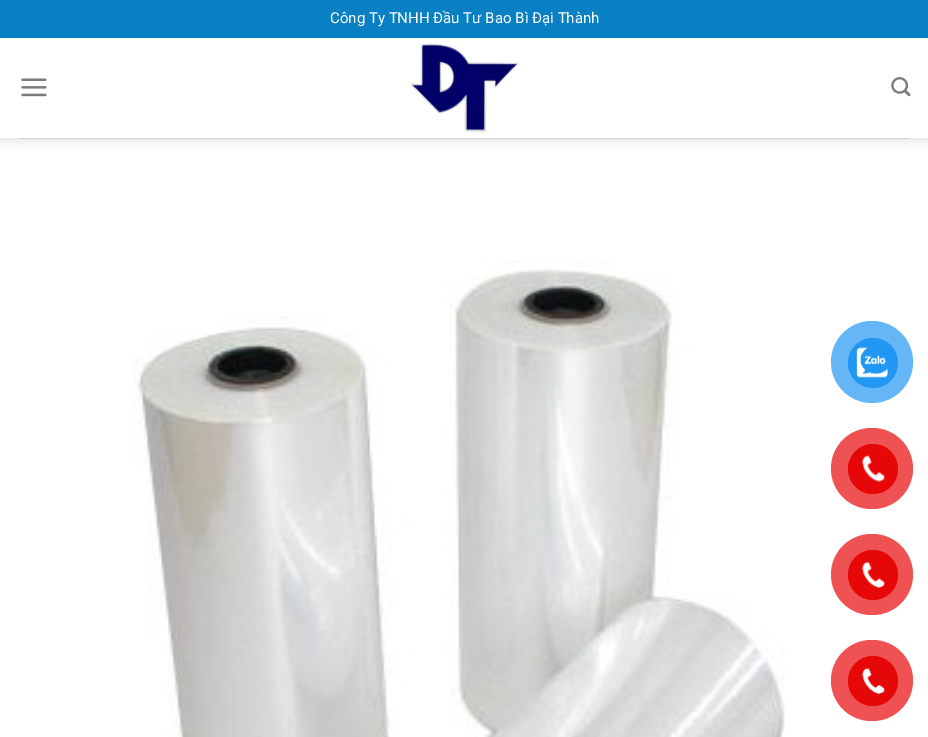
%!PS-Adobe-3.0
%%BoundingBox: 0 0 928 737
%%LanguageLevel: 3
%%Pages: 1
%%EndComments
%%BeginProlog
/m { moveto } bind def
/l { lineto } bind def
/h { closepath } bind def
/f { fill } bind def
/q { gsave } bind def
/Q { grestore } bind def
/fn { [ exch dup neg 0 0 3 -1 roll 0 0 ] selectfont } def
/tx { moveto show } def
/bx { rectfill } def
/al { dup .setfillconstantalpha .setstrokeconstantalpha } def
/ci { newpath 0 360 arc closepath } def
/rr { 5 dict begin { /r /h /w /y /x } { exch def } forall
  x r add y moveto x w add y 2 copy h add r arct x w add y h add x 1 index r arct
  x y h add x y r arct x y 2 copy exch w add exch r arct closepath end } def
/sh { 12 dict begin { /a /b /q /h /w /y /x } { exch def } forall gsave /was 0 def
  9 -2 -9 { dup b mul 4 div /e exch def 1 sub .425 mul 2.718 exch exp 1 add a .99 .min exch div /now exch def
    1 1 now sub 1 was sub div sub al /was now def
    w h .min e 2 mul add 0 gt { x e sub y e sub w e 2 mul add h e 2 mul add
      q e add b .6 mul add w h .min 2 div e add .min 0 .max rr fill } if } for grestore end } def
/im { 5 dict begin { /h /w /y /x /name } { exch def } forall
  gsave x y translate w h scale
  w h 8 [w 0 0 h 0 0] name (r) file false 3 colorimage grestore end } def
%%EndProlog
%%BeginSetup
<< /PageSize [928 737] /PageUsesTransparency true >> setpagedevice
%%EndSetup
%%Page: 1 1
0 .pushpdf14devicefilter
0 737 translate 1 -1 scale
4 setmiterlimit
1 setgray
0 0 928 737 bx
q
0 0 m 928 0 l 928 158 l 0 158 l h 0 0 m 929 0 l 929 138 l 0 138 l h eoclip newpath
0 setgray
1 1 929 138 0 6 0.15 sh
Q
0.035 0.502 0.769 setrgbcolor
0 0 928 38 bx
/Roboto-Regular 15 fn
1 setgray
(Công Ty TNHH Đầu Tư Bao Bì Đại Thành) 330 23 tx
(image0.raw) 21 78 26 19 im
(image1.raw) 409 43 111 90 im
(image2.raw) 891 77 20 20 im
0.831 setgray
19 138 891 1 bx
0.9 al
1 setgray
0 137 928 1 bx
1 al
(image3.raw) 134 260 651 477 im
0.392 0.714 0.969 setrgbcolor
872 362 41 ci f
0.129 0.588 0.953 setrgbcolor
873 363 25 ci f
(image4.raw) 856 347 32 31 im
0.933 0.322 0.322 setrgbcolor
831 428 82 81 40.5 rr f
0.902 0.031 0.031 setrgbcolor
873 469 25 ci f
(image5.raw) 862 455 23 27 im
0.933 0.322 0.322 setrgbcolor
831 534 82 81 40.5 rr f
0.902 0.031 0.031 setrgbcolor
873 575 25 ci f
(image6.raw) 862 561 23 27 im
0.933 0.322 0.322 setrgbcolor
831 640 82 81 40.5 rr f
0.902 0.031 0.031 setrgbcolor
873 681 25 ci f
(image7.raw) 862 668 23 26 im
.poppdf14devicefilter showpage
%%EOF
